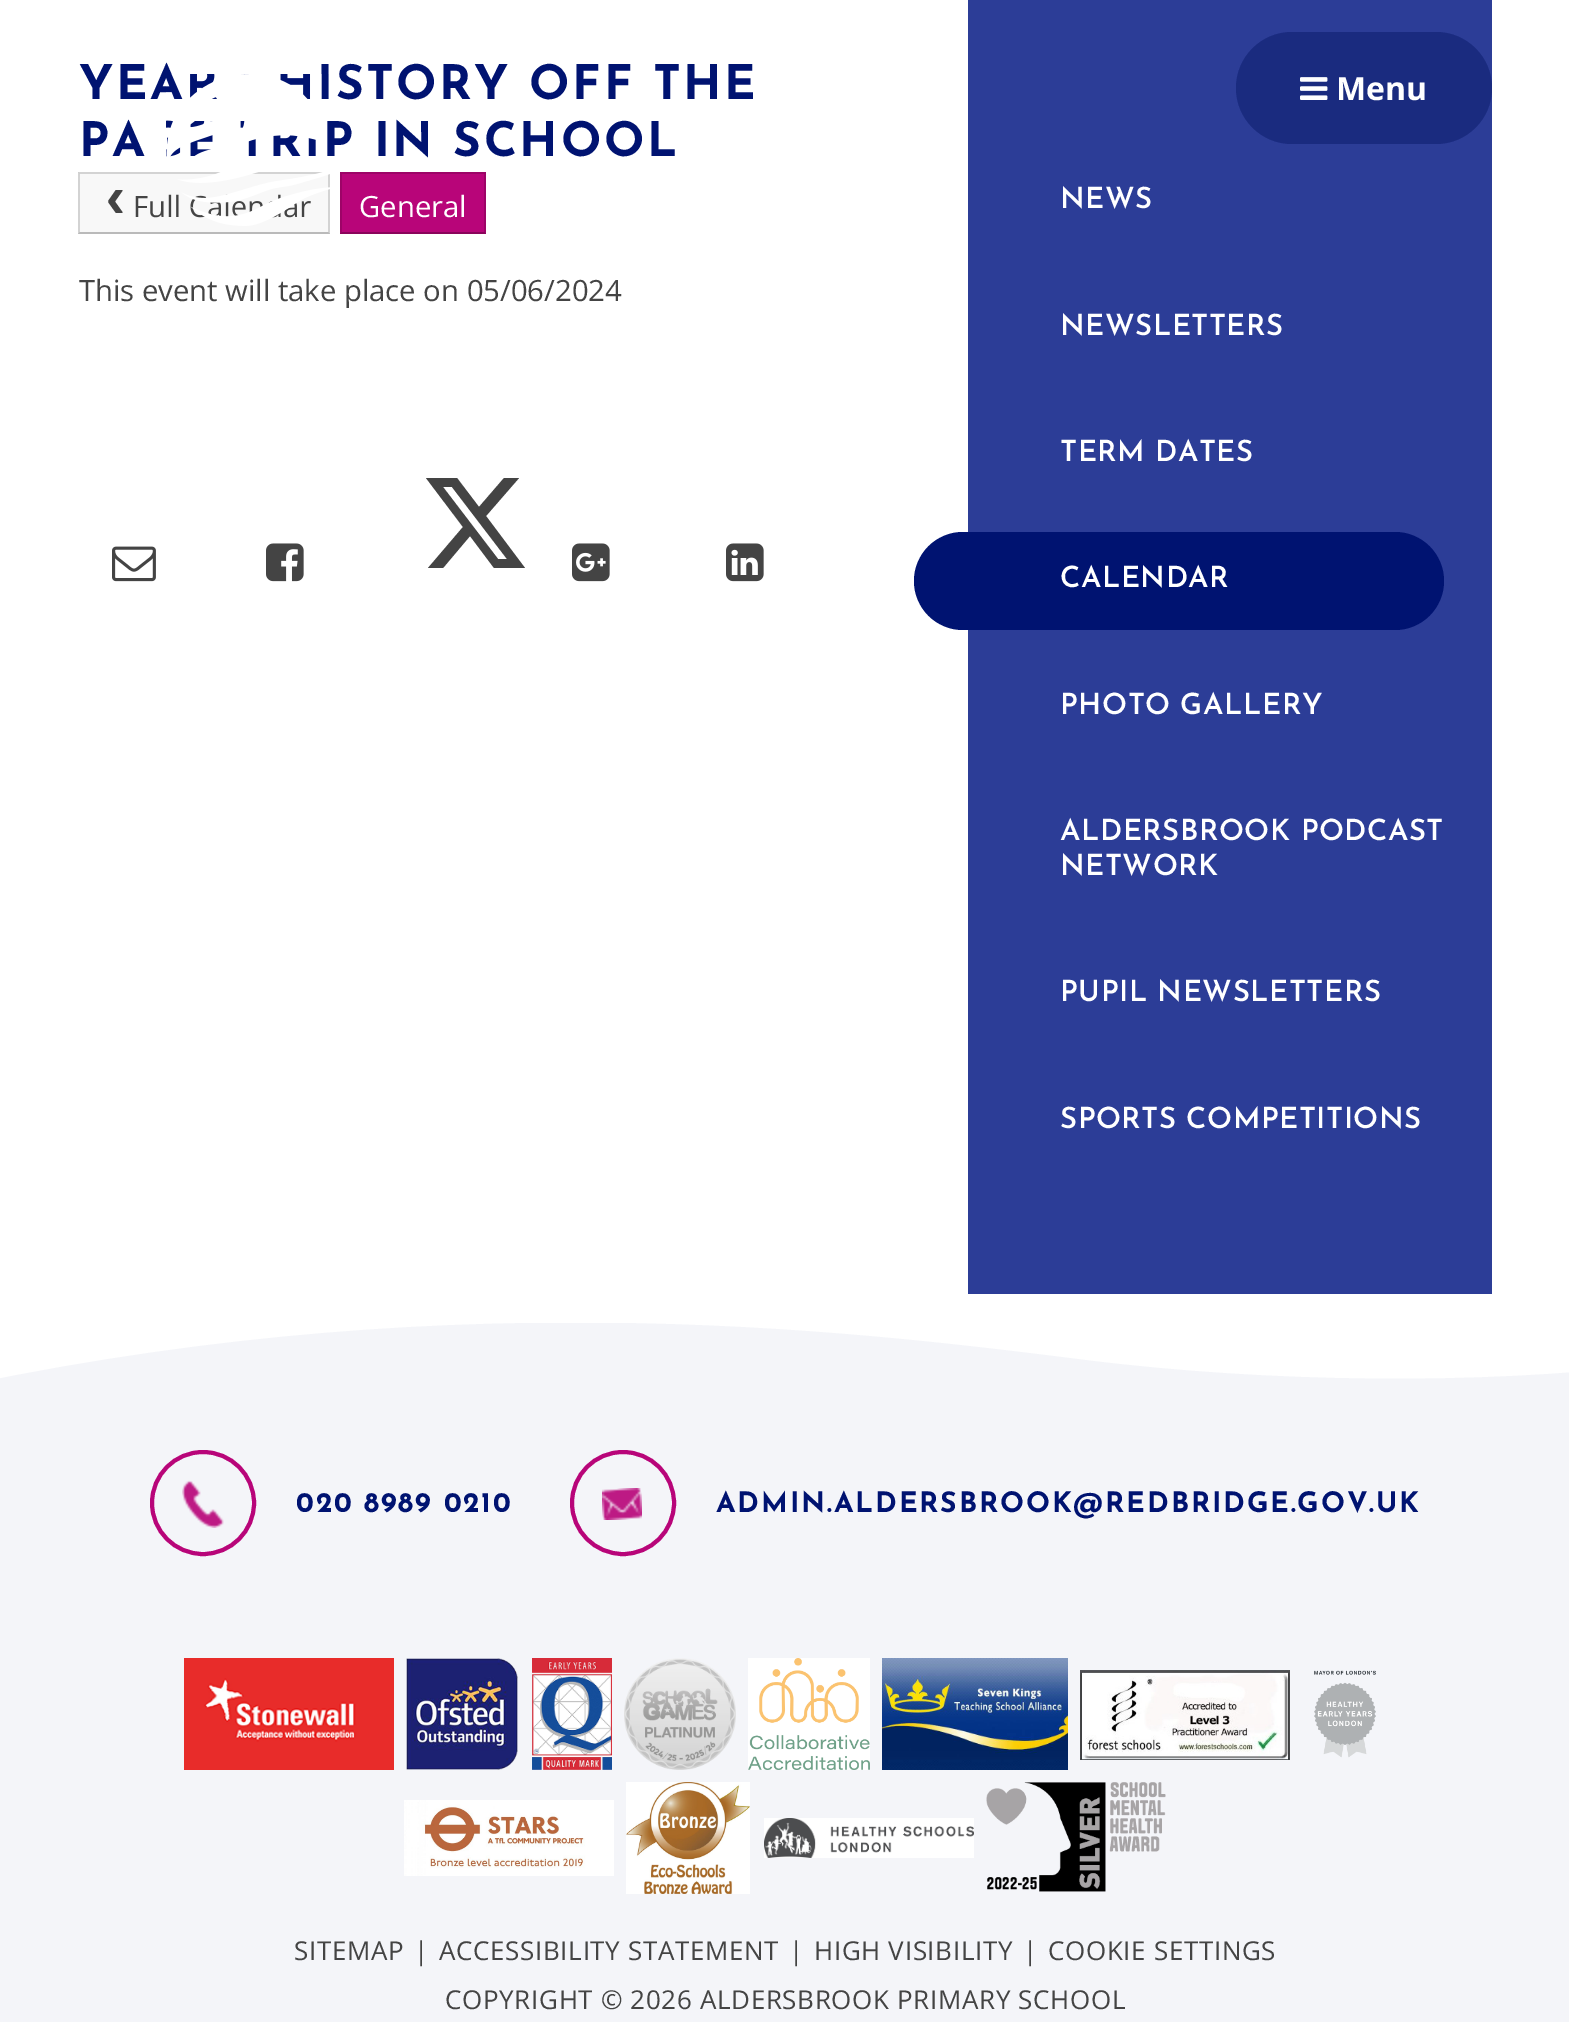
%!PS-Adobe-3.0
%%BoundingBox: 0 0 1569 2022
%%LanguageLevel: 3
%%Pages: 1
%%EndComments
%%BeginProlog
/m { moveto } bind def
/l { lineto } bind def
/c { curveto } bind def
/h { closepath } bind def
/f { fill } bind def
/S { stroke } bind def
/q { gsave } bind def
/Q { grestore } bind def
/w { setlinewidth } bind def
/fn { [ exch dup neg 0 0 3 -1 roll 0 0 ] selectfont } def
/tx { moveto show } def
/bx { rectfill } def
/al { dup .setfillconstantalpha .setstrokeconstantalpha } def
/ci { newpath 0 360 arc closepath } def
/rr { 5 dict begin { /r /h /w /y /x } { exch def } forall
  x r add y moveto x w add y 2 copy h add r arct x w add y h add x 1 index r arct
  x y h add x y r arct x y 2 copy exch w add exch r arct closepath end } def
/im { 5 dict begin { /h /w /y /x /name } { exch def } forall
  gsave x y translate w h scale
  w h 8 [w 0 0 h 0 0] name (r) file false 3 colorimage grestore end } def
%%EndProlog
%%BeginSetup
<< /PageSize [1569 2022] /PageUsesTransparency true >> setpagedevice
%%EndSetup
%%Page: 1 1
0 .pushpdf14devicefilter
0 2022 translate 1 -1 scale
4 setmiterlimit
0.957 0.961 0.976 setrgbcolor
0 0 1569 2022 bx
1 setgray
0 0 1569 1379 bx
/JosefinSans-Bold 47.5 fn
0 0.075 0.443 setrgbcolor
79 99 m 2.6 0 (YEA) ashow
317 99 m 2.6 0 (ISTORY OFF THE) ashow
79 156 m 2.6 0 (PA) ashow
323 156 m 2.6 0 (P IN SCHOOL) ashow
0.973 setgray
78 172 252 62 bx
0.827 setgray
78 172 m 330 172 l 328 174 l 80 174 l h f
0.15 al
0 setgray
330 172 m 330 234 l 328 232 l 328 174 l h f
0.25 al
330 234 m 78 234 l 80 232 l 328 232 l h f
0.15 al
78 234 m 78 172 l 80 174 l 80 232 l h f
/LiberationMono-Bold 59 fn
1 al
0.267 setgray
(‹) 98 217 tx
/OpenSans-Regular 29.25 fn
(Full Calendar) 133 217 tx
0.722 0.02 0.475 setrgbcolor
340 172 146 62 bx
0.612 0.016 0.404 setrgbcolor
340 172 m 486 172 l 484 174 l 342 174 l h f
0.15 al
0 setgray
486 172 m 486 234 l 484 232 l 484 174 l h f
0.25 al
486 234 m 340 234 l 342 232 l 484 232 l h f
0.15 al
340 234 m 340 172 l 342 174 l 342 232 l h f
1 al
1 setgray
(General) 359 217 tx
0.267 setgray
(This event will take place on 05/06/2024) 79 301 tx
(image0.raw) 112 546 44 36 im
(image1.raw) 266 543 38 39 im
504 478 m 519 478 l 486 516 l 525 568 l 494 568 l 470 536 l 443 568 l 428 568 l 463 527 l 426 478 l 457 478 l 479 507 l h 498 559 m 507 559 l 452 487 l 443 487 l h f
(image2.raw) 572 543 38 39 im
(image3.raw) 726 543 38 39 im
0.173 0.239 0.592 setrgbcolor
968 0 524 1294 bx
/JosefinSans-SemiBold 29.25 fn
1 setgray
1060 208 m 0.5 0 (NEWS) ashow
1060 335 m 0.5 0 (NEWSLETTERS) ashow
1060 461 m 0.5 0 (TERM DATES) ashow
0 0.075 0.443 setrgbcolor
914 532 530 98 49 rr f
1 setgray
1060 587 m 0.5 0 (CALENDAR) ashow
1060 714 m 0.5 0 (PHOTO GALLERY) ashow
1060 840 m 0.5 0 (ALDERSBROOK PODCAST) ashow
1060 875 m 0.5 0 (NETWORK) ashow
1060 1001 m 0.5 0 (PUPIL NEWSLETTERS) ashow
1060 1128 m 0.5 0 (SPORTS COMPETITIONS) ashow
(image4.raw) 166 74 164 152 im
0 0.075 0.443 setrgbcolor
1236 32 256 112 56 rr f
0.1 al
1 setgray
1236 32 256 112 56 rr f
1 al
(image5.raw) 1300 77 28 23 im
/OpenSans-Bold 32 fn
(Menu) 1336 100 tx
q
0 1323 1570 93 rectclip
0.957 0.961 0.976 setrgbcolor
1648 1365 m 1480 1385 1269 1383 1085 1360 c 840 1329 430 1280 -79 1395 c -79 1395 315 1372 559 1392 c 710 1404 1321 1455 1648 1365 c h f
Q
(image6.raw) 182 1480 42 48 im
0.722 0.02 0.475 setrgbcolor
4 w
203 1503 51 ci S
/JosefinSans-Bold 28.2 fn
0 0.075 0.443 setrgbcolor
296 1512 m 1.85 0 (020 8989 0210) ashow
(image7.raw) 602 1488 40 32 im
0.722 0.02 0.475 setrgbcolor
623 1503 51 ci S
0 0.075 0.443 setrgbcolor
716 1512 m 1.85 0 (ADMIN.ALDERSBROOK@REDBRIDGE.GOV.UK) ashow
(image8.raw) 184 1658 210 112 im
(image9.raw) 406 1658 112 112 im
(image10.raw) 532 1658 80 112 im
(image11.raw) 624 1658 112 112 im
(image12.raw) 748 1658 122 112 im
(image13.raw) 882 1658 186 112 im
(image14.raw) 1080 1670 210 90 im
(image15.raw) 1314 1670 62 88 im
(image16.raw) 404 1800 210 76 im
(image17.raw) 626 1782 124 112 im
(image18.raw) 764 1818 210 40 im
(image19.raw) 986 1782 180 110 im
/OpenSans-Regular 26 fn
0.267 setgray
294 1960 m 0.65 0 (SITEMAP) ashow
414 1960 m 0.65 0 (|) ashow
439 1960 m 0.65 0 (ACCESSIBILITY STATEMENT) ashow
789 1960 m 0.65 0 (|) ashow
814 1960 m 0.65 0 (HIGH VISIBILITY) ashow
1023 1960 m 0.65 0 (|) ashow
1048 1960 m 0.65 0 (COOKIE SETTINGS) ashow
445 2009 m 0.65 0 (COPYRIGHT © 2026 ALDERSBROOK PRIMARY SCHOOL) ashow
.poppdf14devicefilter showpage
%%EOF
